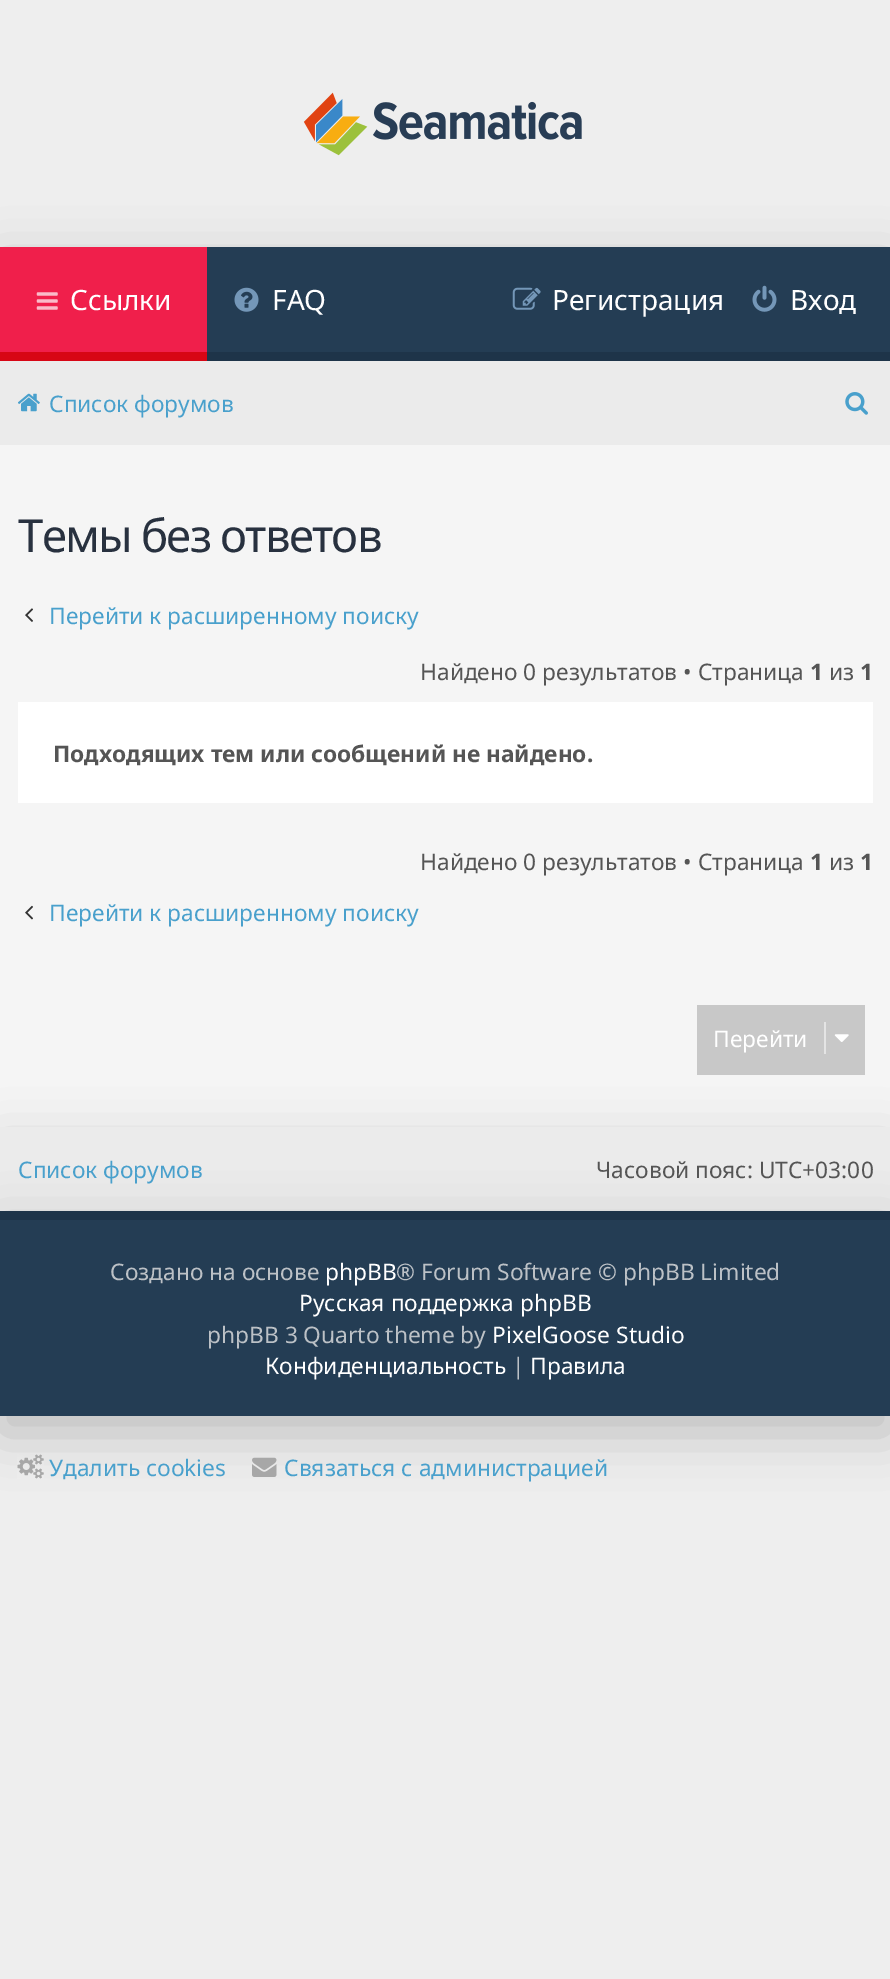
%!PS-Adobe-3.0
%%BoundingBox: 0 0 890 1979
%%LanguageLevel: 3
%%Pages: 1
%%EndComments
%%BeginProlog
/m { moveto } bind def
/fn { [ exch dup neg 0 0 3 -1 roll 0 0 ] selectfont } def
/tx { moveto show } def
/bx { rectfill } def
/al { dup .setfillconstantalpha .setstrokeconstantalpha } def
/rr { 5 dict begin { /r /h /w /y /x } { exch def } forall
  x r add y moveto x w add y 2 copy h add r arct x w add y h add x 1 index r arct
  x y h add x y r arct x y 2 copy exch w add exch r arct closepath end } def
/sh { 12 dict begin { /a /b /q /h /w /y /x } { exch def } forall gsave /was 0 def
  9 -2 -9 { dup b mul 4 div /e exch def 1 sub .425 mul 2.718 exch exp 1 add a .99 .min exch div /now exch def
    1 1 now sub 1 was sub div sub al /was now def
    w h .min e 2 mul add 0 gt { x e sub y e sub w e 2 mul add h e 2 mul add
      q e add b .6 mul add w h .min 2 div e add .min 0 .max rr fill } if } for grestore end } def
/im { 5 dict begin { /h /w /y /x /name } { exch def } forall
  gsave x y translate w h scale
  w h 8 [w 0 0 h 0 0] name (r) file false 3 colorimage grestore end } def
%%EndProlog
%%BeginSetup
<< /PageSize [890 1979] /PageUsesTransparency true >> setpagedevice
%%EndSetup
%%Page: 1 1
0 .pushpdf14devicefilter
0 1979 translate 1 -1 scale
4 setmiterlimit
0.933 setgray
0 0 890 1979 bx
(image0.raw) 303 92 279 64 im
0 setgray
0 264 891 198 0 26 0.2 sh
0.141 0.239 0.329 setrgbcolor
207 247 683 105 bx
0.118 0.204 0.286 setrgbcolor
207 352 683 9 bx
0.941 0.122 0.294 setrgbcolor
0 247 207 105 bx
0.843 0.024 0.082 setrgbcolor
0 352 207 9 bx
(image1.raw) 36 292 22 18 im
/NotoSans-Regular 28 fn
1 setgray
(Ссылки) 70 310 tx
(image2.raw) 234 287 25 25 im
(FAQ) 272 310 tx
(image3.raw) 512 287 29 23 im
(Регистрация) 552 310 tx
(image4.raw) 752 285 25 27 im
(Вход) 790 310 tx
0.922 setgray
0 361 890 84 bx
(image5.raw) 18 393 22 19 im
/NotoSans-Regular 22.75 fn
0.286 0.627 0.8 setrgbcolor
(Список форумов) 49 412 tx
(image6.raw) 845 392 23 23 im
0.961 setgray
0 445 890 682 bx
/NotoSans-Regular 45.5 fn
0.157 0.192 0.247 setrgbcolor
18 552 m -1.75 0 (Темы без ответов) ashow
(image7.raw) 25 608 8 14 im
/NotoSans-Regular 22.75 fn
0.286 0.627 0.8 setrgbcolor
(Перейти к расширенному поиску) 49 624 tx
0.333 setgray
(Найдено 0 результатов • Страница) 420 680 tx
/NotoSans-Bold 22.75 fn
(1) 810 680 tx
/NotoSans-Regular 22.75 fn
(из) 829 680 tx
/NotoSans-Bold 22.75 fn
(1) 860 680 tx
1 setgray
18 702 855 101 bx
0.333 setgray
(Подходящих тем или сообщений не найдено.) 53 762 tx
/NotoSans-Regular 22.75 fn
(Найдено 0 результатов • Страница) 420 870 tx
/NotoSans-Bold 22.75 fn
(1) 810 870 tx
/NotoSans-Regular 22.75 fn
(из) 829 870 tx
/NotoSans-Bold 22.75 fn
(1) 860 870 tx
(image8.raw) 25 905 8 15 im
/NotoSans-Regular 22.75 fn
0.286 0.627 0.8 setrgbcolor
(Перейти к расширенному поиску) 49 921 tx
0 setgray
0 1145 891 84 0 26 0.2 sh
0.784 setgray
697 1005 168 70 bx
1 setgray
(Перейти) 713 1047 tx
0.894 setgray
824 1022 2 32 bx
(image9.raw) 834 1034 15 8 im
0.922 setgray
0 1127 890 84 bx
0 setgray
0 1229 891 204 0 26 0.2 sh
0.286 0.627 0.8 setrgbcolor
(Список форумов) 18 1178 tx
0.333 setgray
(Часовой пояс: UTC+03:00) 596 1178 tx
0.141 0.239 0.329 setrgbcolor
0 1220 890 196 bx
0.118 0.204 0.286 setrgbcolor
0 1211 890 9 bx
0.737 0.757 0.776 setrgbcolor
(Создано на основе) 110 1280 tx
1 setgray
(phpBB) 325 1280 tx
0.737 0.757 0.776 setrgbcolor
(® Forum Software © phpBB Limited) 396 1280 tx
1 setgray
(Русская поддержка phpBB) 299 1311 tx
0.737 0.757 0.776 setrgbcolor
(phpBB 3 Quarto theme by) 207 1343 tx
1 setgray
(PixelGoose Studio) 492 1343 tx
(Конфиденциальность) 265 1374 tx
0.737 0.757 0.776 setrgbcolor
(|) 512 1374 tx
1 setgray
(Правила) 530 1374 tx
(image10.raw) 17 1454 27 25 im
0.286 0.627 0.8 setrgbcolor
(Удалить cookies) 49 1476 tx
(image11.raw) 252 1457 25 20 im
(Связаться с администрацией) 284 1476 tx
.poppdf14devicefilter showpage
%%EOF
